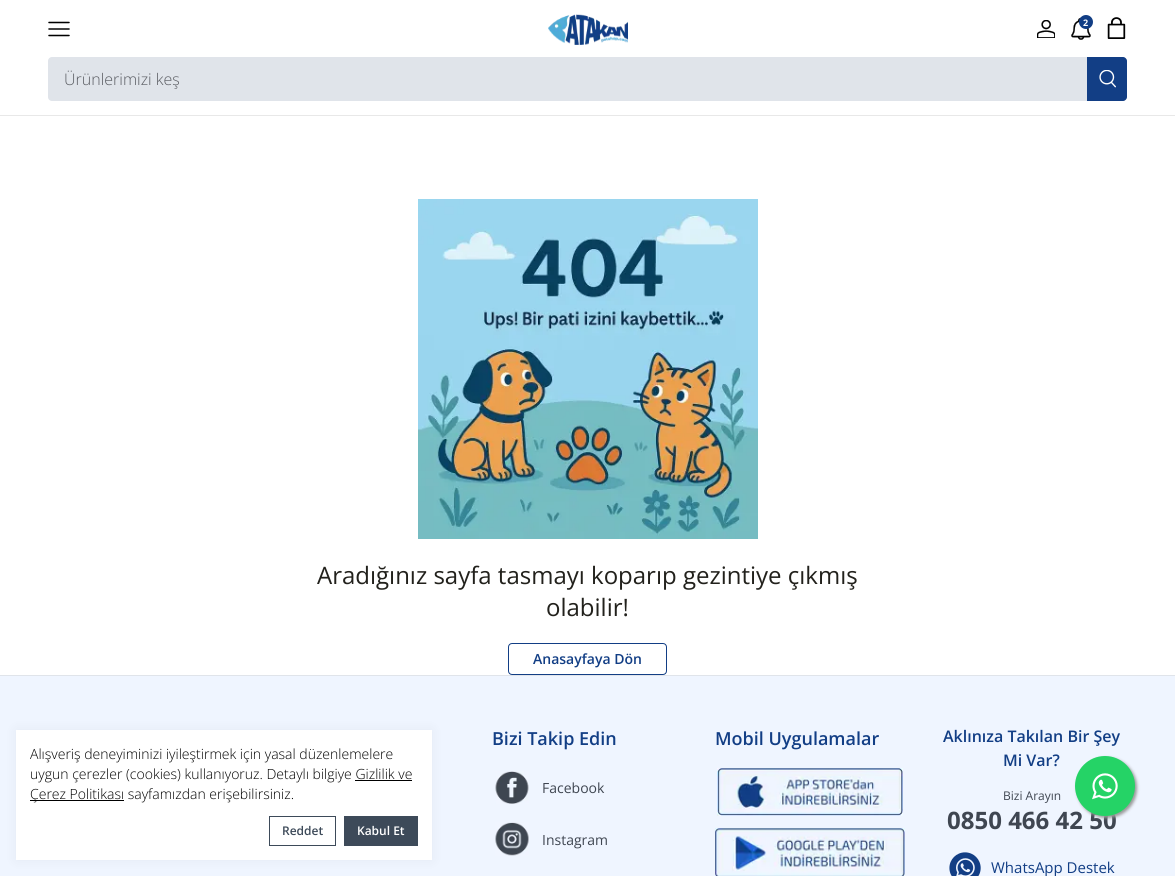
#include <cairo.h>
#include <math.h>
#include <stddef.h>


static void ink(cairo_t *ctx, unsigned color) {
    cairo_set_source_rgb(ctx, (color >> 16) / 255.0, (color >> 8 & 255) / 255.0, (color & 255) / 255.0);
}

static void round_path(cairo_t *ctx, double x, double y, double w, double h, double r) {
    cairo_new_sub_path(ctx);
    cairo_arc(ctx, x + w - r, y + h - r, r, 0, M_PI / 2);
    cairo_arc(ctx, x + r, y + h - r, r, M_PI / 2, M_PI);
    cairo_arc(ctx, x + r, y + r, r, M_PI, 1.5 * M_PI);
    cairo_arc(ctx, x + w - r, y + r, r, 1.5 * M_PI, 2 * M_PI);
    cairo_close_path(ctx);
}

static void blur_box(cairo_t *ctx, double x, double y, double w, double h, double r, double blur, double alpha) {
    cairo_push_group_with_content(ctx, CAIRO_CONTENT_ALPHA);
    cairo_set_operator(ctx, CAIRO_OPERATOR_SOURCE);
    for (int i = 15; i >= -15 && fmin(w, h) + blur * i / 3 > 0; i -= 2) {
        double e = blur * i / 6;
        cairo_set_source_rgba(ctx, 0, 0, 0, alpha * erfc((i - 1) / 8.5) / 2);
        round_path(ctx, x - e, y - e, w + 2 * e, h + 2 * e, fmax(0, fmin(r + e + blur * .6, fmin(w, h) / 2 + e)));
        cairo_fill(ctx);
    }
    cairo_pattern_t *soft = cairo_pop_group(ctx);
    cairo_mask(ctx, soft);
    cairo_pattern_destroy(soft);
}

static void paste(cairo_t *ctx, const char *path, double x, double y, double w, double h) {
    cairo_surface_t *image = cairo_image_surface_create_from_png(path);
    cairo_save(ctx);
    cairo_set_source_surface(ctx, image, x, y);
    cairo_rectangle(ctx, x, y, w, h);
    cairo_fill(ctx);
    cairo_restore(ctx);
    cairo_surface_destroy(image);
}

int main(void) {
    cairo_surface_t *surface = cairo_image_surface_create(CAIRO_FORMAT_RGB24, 1175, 876);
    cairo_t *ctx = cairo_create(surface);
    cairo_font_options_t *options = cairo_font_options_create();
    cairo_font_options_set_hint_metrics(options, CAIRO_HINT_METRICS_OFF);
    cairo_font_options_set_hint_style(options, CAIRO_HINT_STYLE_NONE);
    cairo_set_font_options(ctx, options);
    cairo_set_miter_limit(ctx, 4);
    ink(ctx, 0xFFFFFF);
    cairo_paint(ctx);
    ink(ctx, 0xE8E8E8);
    cairo_rectangle(ctx, 0, 115, 1175, 1);
    cairo_fill(ctx);
    cairo_new_path(ctx);
    cairo_move_to(ctx, 49, 29);
    cairo_line_to(ctx, 69, 29);
    cairo_move_to(ctx, 49, 22.5);
    cairo_line_to(ctx, 69, 22.5);
    cairo_move_to(ctx, 49, 35.5);
    cairo_line_to(ctx, 69, 35.5);
    ink(ctx, 0x000000);
    cairo_set_line_width(ctx, 1.5);
    cairo_set_line_cap(ctx, CAIRO_LINE_CAP_ROUND);
    cairo_set_line_join(ctx, CAIRO_LINE_JOIN_ROUND);
    cairo_stroke(ctx);
    paste(ctx, "media/1.png", 548, 14, 80, 31);
    paste(ctx, "media/2.png", 1037, 20, 18, 18);
    paste(ctx, "media/3.png", 1071, 17, 20, 23);
    ink(ctx, 0x123E85);
    cairo_arc(ctx, 1086, 22, 7, 0, 2 * M_PI);
    cairo_fill(ctx);
    cairo_select_font_face(ctx, "Open Sans", CAIRO_FONT_SLANT_NORMAL, CAIRO_FONT_WEIGHT_BOLD);
    cairo_set_font_size(ctx, 9);
    ink(ctx, 0xFFFFFF);
    cairo_move_to(ctx, 1083, 26);
    cairo_show_text(ctx, "2");
    paste(ctx, "media/4.png", 1107, 17, 19, 22);
    ink(ctx, 0xE0E4EA);
    round_path(ctx, 48, 57, 1079, 44, 4);
    cairo_fill(ctx);
    cairo_select_font_face(ctx, "Open Sans Light", CAIRO_FONT_SLANT_NORMAL, CAIRO_FONT_WEIGHT_NORMAL);
    cairo_set_font_size(ctx, 16);
    ink(ctx, 0x5B5D63);
    cairo_move_to(ctx, 64, 85);
    cairo_show_text(ctx, "Ürünlerimizi keş");
    ink(ctx, 0x123E85);
    cairo_new_path(ctx);
    cairo_move_to(ctx, 1087, 57);
    cairo_line_to(ctx, 1123, 57);
    cairo_curve_to(ctx, 1125, 57, 1127, 59, 1127, 61);
    cairo_line_to(ctx, 1127, 97);
    cairo_curve_to(ctx, 1127, 99, 1125, 101, 1123, 101);
    cairo_line_to(ctx, 1087, 101);
    cairo_close_path(ctx);
    cairo_fill(ctx);
    paste(ctx, "media/5.png", 1099, 70, 17, 18);
    ink(ctx, 0xEFF5FF);
    cairo_rectangle(ctx, 0, 676, 1175, 200);
    cairo_fill(ctx);
    ink(ctx, 0x000000);
    blur_box(ctx, 16, 730, 416, 130, 0, 6, 0.05);
    ink(ctx, 0xFFFFFF);
    cairo_rectangle(ctx, 16, 730, 416, 130);
    cairo_fill(ctx);
    cairo_set_font_size(ctx, 14);
    ink(ctx, 0x000000);
    cairo_move_to(ctx, 30, 759);
    cairo_show_text(ctx, "Alışveriş deneyiminizi iyileştirmek için yasal düzenlemelere");
    cairo_move_to(ctx, 30, 779);
    cairo_show_text(ctx, "uygun çerezler (cookies) kullanıyoruz. Detaylı bilgiye Gizlilik ve");
    cairo_rectangle(ctx, 30, 800, 94, 1);
    cairo_fill(ctx);
    cairo_move_to(ctx, 30, 799);
    cairo_show_text(ctx, "Çerez Politikası sayfamızdan erişebilirsiniz.");
    cairo_rectangle(ctx, 355, 780, 57, 1);
    cairo_fill(ctx);
    cairo_rectangle(ctx, 269.5, 816.5, 66, 29);
    ink(ctx, 0x3D4A59);
    cairo_set_line_width(ctx, 1);
    cairo_set_line_cap(ctx, CAIRO_LINE_CAP_BUTT);
    cairo_set_line_join(ctx, CAIRO_LINE_JOIN_MITER);
    cairo_stroke(ctx);
    cairo_select_font_face(ctx, "Open Sans SemiBold", CAIRO_FONT_SLANT_NORMAL, CAIRO_FONT_WEIGHT_NORMAL);
    cairo_set_font_size(ctx, 12);
    cairo_move_to(ctx, 282, 835);
    cairo_show_text(ctx, "Reddet");
    cairo_rectangle(ctx, 344, 816, 74, 30);
    cairo_fill(ctx);
    ink(ctx, 0xFFFFFF);
    cairo_move_to(ctx, 357, 835);
    cairo_show_text(ctx, "Kabul Et");
    paste(ctx, "media/6.png", 418, 199, 340, 340);
    cairo_select_font_face(ctx, "Open Sans", CAIRO_FONT_SLANT_NORMAL, CAIRO_FONT_WEIGHT_NORMAL);
    cairo_set_font_size(ctx, 24);
    ink(ctx, 0x22211C);
    cairo_move_to(ctx, 317, 584);
    cairo_show_text(ctx, "Aradığınız sayfa tasmayı koparıp gezintiye çıkmış");
    cairo_move_to(ctx, 546, 616);
    cairo_show_text(ctx, "olabilir!");
    round_path(ctx, 508.5, 643.5, 158, 31, 3.5);
    ink(ctx, 0x123E85);
    cairo_stroke(ctx);
    cairo_select_font_face(ctx, "Open Sans SemiBold", CAIRO_FONT_SLANT_NORMAL, CAIRO_FONT_WEIGHT_NORMAL);
    cairo_set_font_size(ctx, 14);
    cairo_move_to(ctx, 533, 664);
    cairo_show_text(ctx, "Anasayfaya Dön");
    ink(ctx, 0xE0E4EA);
    cairo_rectangle(ctx, 0, 675, 1175, 1);
    cairo_fill(ctx);
    cairo_set_font_size(ctx, 18);
    ink(ctx, 0x123E85);
    cairo_move_to(ctx, 492, 745);
    cairo_show_text(ctx, "Bizi Takip Edin");
    paste(ctx, "media/7.png", 495, 771, 34, 33);
    cairo_select_font_face(ctx, "Open Sans", CAIRO_FONT_SLANT_NORMAL, CAIRO_FONT_WEIGHT_NORMAL);
    cairo_set_font_size(ctx, 14);
    ink(ctx, 0x3F4651);
    cairo_move_to(ctx, 542, 793);
    cairo_show_text(ctx, "Facebook");
    paste(ctx, "media/8.png", 495, 822, 34, 34);
    cairo_move_to(ctx, 542, 845);
    cairo_show_text(ctx, "Instagram");
    cairo_select_font_face(ctx, "Open Sans SemiBold", CAIRO_FONT_SLANT_NORMAL, CAIRO_FONT_WEIGHT_NORMAL);
    cairo_set_font_size(ctx, 18);
    ink(ctx, 0x123E85);
    cairo_move_to(ctx, 715, 745);
    cairo_show_text(ctx, "Mobil Uygulamalar");
    paste(ctx, "media/9.png", 717, 768, 186, 48);
    paste(ctx, "media/10.png", 715, 828, 190, 48);
    cairo_set_font_size(ctx, 16);
    cairo_move_to(ctx, 943, 742);
    cairo_show_text(ctx, "Aklınıza Takılan Bir Şey");
    cairo_move_to(ctx, 1003, 766);
    cairo_show_text(ctx, "Mi Var?");
    cairo_select_font_face(ctx, "Open Sans", CAIRO_FONT_SLANT_NORMAL, CAIRO_FONT_WEIGHT_NORMAL);
    cairo_set_font_size(ctx, 12);
    ink(ctx, 0x3F4651);
    cairo_move_to(ctx, 1003, 800);
    cairo_show_text(ctx, "Bizi Arayın");
    cairo_select_font_face(ctx, "Open Sans", CAIRO_FONT_SLANT_NORMAL, CAIRO_FONT_WEIGHT_BOLD);
    cairo_set_font_size(ctx, 24);
    cairo_move_to(ctx, 947, 829);
    cairo_show_text(ctx, "0850 466 42 50");
    paste(ctx, "media/11.png", 949, 852, 32, 24);
    cairo_select_font_face(ctx, "Open Sans", CAIRO_FONT_SLANT_NORMAL, CAIRO_FONT_WEIGHT_NORMAL);
    cairo_set_font_size(ctx, 15);
    ink(ctx, 0x123E85);
    cairo_move_to(ctx, 991, 873);
    cairo_show_text(ctx, "WhatsApp Destek");
    ink(ctx, 0x999999);
    blur_box(ctx, 1077, 758, 60, 60, 30, 1.5, 1);
    ink(ctx, 0x25D366);
    cairo_arc(ctx, 1105, 786, 30, 0, 2 * M_PI);
    cairo_fill(ctx);
    paste(ctx, "media/12.png", 1092, 773, 26, 27);
    cairo_surface_write_to_png(surface, "image.png");
    cairo_font_options_destroy(options);
    cairo_destroy(ctx);
    cairo_surface_destroy(surface);
    return 0;
}
